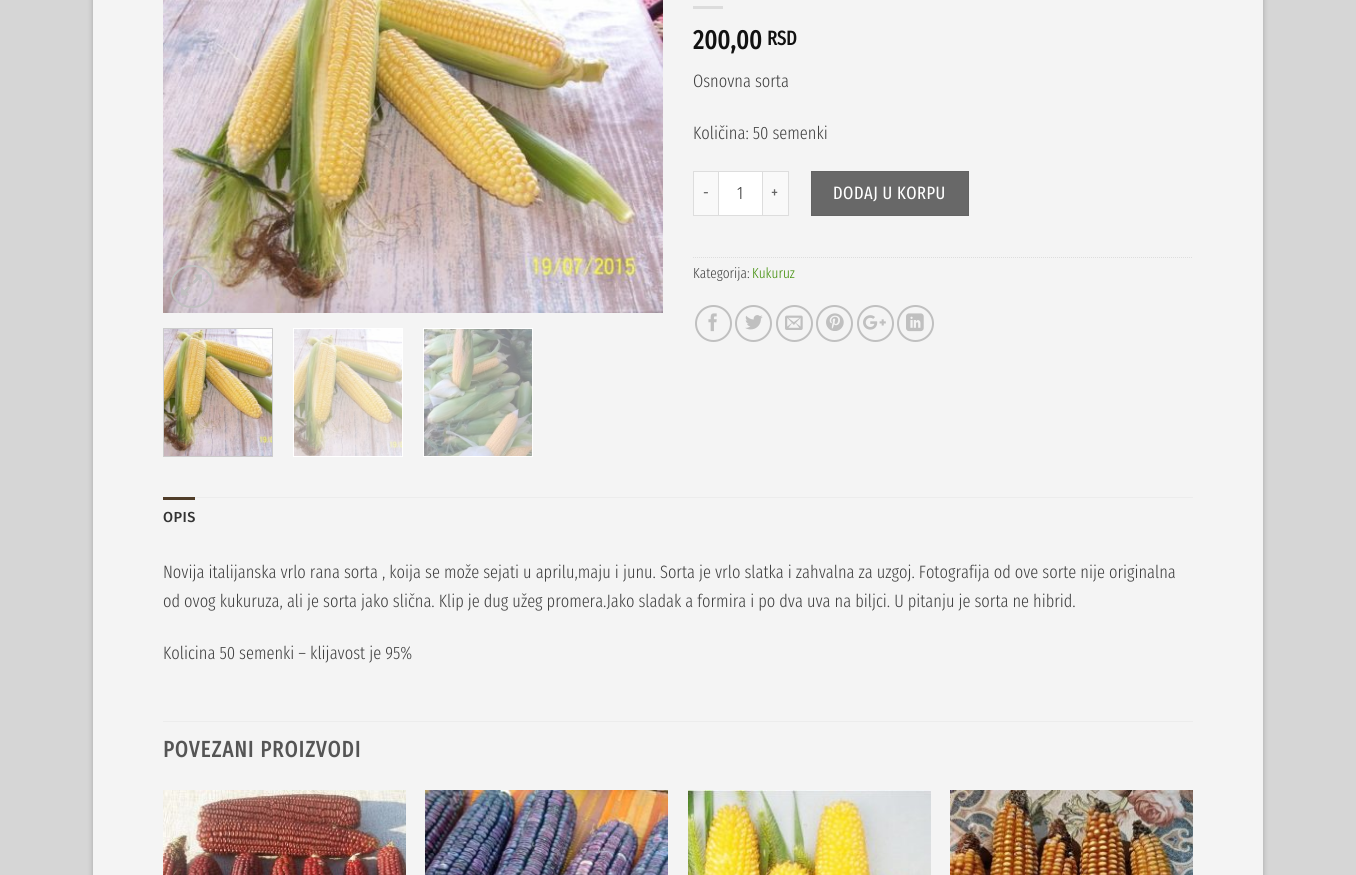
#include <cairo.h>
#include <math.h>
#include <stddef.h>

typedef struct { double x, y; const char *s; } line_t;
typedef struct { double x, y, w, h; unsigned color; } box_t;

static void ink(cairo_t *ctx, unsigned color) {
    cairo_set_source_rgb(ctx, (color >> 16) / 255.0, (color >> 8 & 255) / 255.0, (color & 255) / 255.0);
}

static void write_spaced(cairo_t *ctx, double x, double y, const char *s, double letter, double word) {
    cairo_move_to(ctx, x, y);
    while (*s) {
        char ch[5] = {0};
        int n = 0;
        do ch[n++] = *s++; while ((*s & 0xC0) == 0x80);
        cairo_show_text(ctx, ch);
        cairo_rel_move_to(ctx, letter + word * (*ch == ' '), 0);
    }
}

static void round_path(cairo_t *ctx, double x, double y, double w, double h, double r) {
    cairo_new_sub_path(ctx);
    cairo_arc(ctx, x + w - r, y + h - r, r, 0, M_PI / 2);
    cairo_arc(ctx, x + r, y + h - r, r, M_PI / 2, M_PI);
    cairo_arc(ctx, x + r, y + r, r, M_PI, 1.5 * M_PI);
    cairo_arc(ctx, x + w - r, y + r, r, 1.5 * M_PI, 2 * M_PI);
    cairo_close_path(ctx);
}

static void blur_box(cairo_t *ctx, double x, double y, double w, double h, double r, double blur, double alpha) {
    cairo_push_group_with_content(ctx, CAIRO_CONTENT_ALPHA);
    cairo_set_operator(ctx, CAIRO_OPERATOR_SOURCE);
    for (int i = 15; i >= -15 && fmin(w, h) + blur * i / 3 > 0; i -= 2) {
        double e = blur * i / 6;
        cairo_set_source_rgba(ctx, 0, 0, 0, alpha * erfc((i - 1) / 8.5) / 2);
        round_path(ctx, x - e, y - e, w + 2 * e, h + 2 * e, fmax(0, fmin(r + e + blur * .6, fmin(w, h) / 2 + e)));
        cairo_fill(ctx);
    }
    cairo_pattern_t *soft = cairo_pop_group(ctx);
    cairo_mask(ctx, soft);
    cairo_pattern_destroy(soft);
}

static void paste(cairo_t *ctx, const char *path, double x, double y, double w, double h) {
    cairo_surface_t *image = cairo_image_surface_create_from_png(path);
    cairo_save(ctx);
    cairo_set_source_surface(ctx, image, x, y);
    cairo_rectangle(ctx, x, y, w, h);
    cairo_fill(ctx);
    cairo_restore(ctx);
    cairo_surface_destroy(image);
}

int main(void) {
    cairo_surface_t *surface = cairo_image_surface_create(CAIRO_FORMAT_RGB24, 1356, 875);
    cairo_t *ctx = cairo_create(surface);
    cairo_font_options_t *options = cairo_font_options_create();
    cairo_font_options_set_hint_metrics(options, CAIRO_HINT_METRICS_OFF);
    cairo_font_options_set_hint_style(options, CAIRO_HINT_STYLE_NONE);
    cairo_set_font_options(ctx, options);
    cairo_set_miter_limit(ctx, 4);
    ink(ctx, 0xD6D6D6);
    cairo_paint(ctx);
    ink(ctx, 0x000000);
    blur_box(ctx, 93, -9, 1170, 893, 0, 3, 0.23);
    ink(ctx, 0xF4F4F4);
    cairo_rectangle(ctx, 93, 0, 1170, 875);
    cairo_fill(ctx);
    paste(ctx, "media/1.png", 163, 0, 500, 313);
    round_path(ctx, 171, 266, 42, 41, 20.5);
    ink(ctx, 0xC0C0C0);
    cairo_stroke(ctx);
    paste(ctx, "media/2.png", 181, 274, 21, 22);
    cairo_rectangle(ctx, 163.5, 328.5, 109, 128);
    ink(ctx, 0xCCCCCC);
    cairo_set_line_width(ctx, 1);
    cairo_stroke(ctx);
    paste(ctx, "media/3.png", 164, 329, 108, 127);
    ink(ctx, 0xFFFFFF);
    cairo_rectangle(ctx, 293, 328, 110, 129);
    cairo_fill(ctx);
    paste(ctx, "media/4.png", 294, 329, 108, 127);
    cairo_rectangle(ctx, 423, 328, 110, 129);
    cairo_fill(ctx);
    paste(ctx, "media/5.png", 424, 329, 108, 127);
    ink(ctx, 0xDCDCDC);
    cairo_rectangle(ctx, 693, 6, 30, 3);
    cairo_fill(ctx);
    cairo_select_font_face(ctx, "Fira Sans Extra Condensed", CAIRO_FONT_SLANT_NORMAL, CAIRO_FONT_WEIGHT_BOLD);
    cairo_set_font_size(ctx, 27);
    ink(ctx, 0x111111);
    cairo_move_to(ctx, 693, 49);
    cairo_show_text(ctx, "200,00");
    cairo_set_font_size(ctx, 20);
    cairo_move_to(ctx, 767, 45);
    cairo_show_text(ctx, "RSD");
    cairo_select_font_face(ctx, "Fira Sans Extra Condensed Light", CAIRO_FONT_SLANT_NORMAL, CAIRO_FONT_WEIGHT_NORMAL);
    cairo_set_font_size(ctx, 17.92);
    ink(ctx, 0x424242);
    cairo_move_to(ctx, 693, 87);
    cairo_show_text(ctx, "Osnovna sorta");
    cairo_move_to(ctx, 693, 139);
    cairo_show_text(ctx, "Količina: 50 semenki");
    {
        static const box_t items[] = {
            {694, 172, 24, 43, 0xF9F9F9},
            {693, 171, 25, 1, 0xDDDDDD},
            {693, 215, 25, 1, 0xDDDDDD},
            {693, 171, 1, 45, 0xDDDDDD},
        };
        for (size_t i = 0; i < sizeof items / sizeof *items; i++) {
            ink(ctx, items[i].color);
            cairo_rectangle(ctx, items[i].x, items[i].y, items[i].w, items[i].h);
            cairo_fill(ctx);
        }
    }
    cairo_select_font_face(ctx, "Fira Sans Extra Condensed", CAIRO_FONT_SLANT_NORMAL, CAIRO_FONT_WEIGHT_NORMAL);
    cairo_set_font_size(ctx, 17);
    ink(ctx, 0x666666);
    write_spaced(ctx, 703, 198, "-", 1, 0);
    ink(ctx, 0xFFFFFF);
    cairo_rectangle(ctx, 718.5, 171.5, 44, 44);
    cairo_fill_preserve(ctx);
    ink(ctx, 0xDDDDDD);
    cairo_stroke(ctx);
    cairo_select_font_face(ctx, "Fira Sans Extra Condensed Light", CAIRO_FONT_SLANT_NORMAL, CAIRO_FONT_WEIGHT_NORMAL);
    cairo_set_font_size(ctx, 17.92);
    ink(ctx, 0x333333);
    cairo_move_to(ctx, 737, 199);
    cairo_show_text(ctx, "1");
    {
        static const box_t items[] = {
            {763, 172, 25, 43, 0xF9F9F9},
            {763, 171, 26, 1, 0xDDDDDD},
            {788, 171, 1, 45, 0xDDDDDD},
            {763, 215, 26, 1, 0xDDDDDD},
        };
        for (size_t i = 0; i < sizeof items / sizeof *items; i++) {
            ink(ctx, items[i].color);
            cairo_rectangle(ctx, items[i].x, items[i].y, items[i].w, items[i].h);
            cairo_fill(ctx);
        }
    }
    cairo_select_font_face(ctx, "Fira Sans Extra Condensed", CAIRO_FONT_SLANT_NORMAL, CAIRO_FONT_WEIGHT_NORMAL);
    cairo_set_font_size(ctx, 17);
    ink(ctx, 0x666666);
    write_spaced(ctx, 771, 198, "+", 1, 0);
    ink(ctx, 0x686868);
    cairo_rectangle(ctx, 811.5, 171.5, 157, 44);
    cairo_fill_preserve(ctx);
    ink(ctx, 0x636363);
    cairo_stroke(ctx);
    cairo_set_font_size(ctx, 17.92);
    ink(ctx, 0xFFFFFF);
    write_spaced(ctx, 833, 199, "DODAJ U KORPU", 0.5, 0);
    cairo_new_path(ctx);
    cairo_move_to(ctx, 693, 257.5);
    cairo_line_to(ctx, 1193, 257.5);
    ink(ctx, 0xDDDDDD);
    cairo_set_dash(ctx, (double[]){1, 1}, 2, 0);
    cairo_stroke(ctx);
    cairo_select_font_face(ctx, "Fira Sans Extra Condensed Light", CAIRO_FONT_SLANT_NORMAL, CAIRO_FONT_WEIGHT_NORMAL);
    cairo_set_font_size(ctx, 14.5);
    ink(ctx, 0x424242);
    cairo_move_to(ctx, 693, 278);
    cairo_show_text(ctx, "Kategorija:");
    ink(ctx, 0x3E8D06);
    cairo_move_to(ctx, 752, 278);
    cairo_show_text(ctx, "Kukuruz");
    cairo_new_path(ctx);
    cairo_arc(ctx, 713.5, 323.5, 17.5, 0, 2 * M_PI);
    ink(ctx, 0xC0C0C0);
    cairo_set_line_width(ctx, 2);
    cairo_set_dash(ctx, NULL, 0, 0);
    cairo_stroke(ctx);
    paste(ctx, "media/6.png", 708, 313, 9, 19);
    cairo_arc(ctx, 753.5, 323.5, 17.5, 0, 2 * M_PI);
    cairo_stroke(ctx);
    paste(ctx, "media/7.png", 745, 315, 18, 15);
    cairo_arc(ctx, 794.5, 323.5, 17.5, 0, 2 * M_PI);
    cairo_stroke(ctx);
    paste(ctx, "media/8.png", 785, 315, 18, 15);
    cairo_arc(ctx, 834.5, 323.5, 17.5, 0, 2 * M_PI);
    cairo_stroke(ctx);
    paste(ctx, "media/9.png", 826, 313, 18, 18);
    cairo_arc(ctx, 875.5, 323.5, 17.5, 0, 2 * M_PI);
    cairo_stroke(ctx);
    paste(ctx, "media/10.png", 863, 315, 23, 15);
    cairo_arc(ctx, 915.5, 323.5, 17.5, 0, 2 * M_PI);
    cairo_stroke(ctx);
    paste(ctx, "media/11.png", 906, 313, 18, 19);
    ink(ctx, 0xECECEC);
    cairo_rectangle(ctx, 195, 497, 998, 1);
    cairo_fill(ctx);
    ink(ctx, 0x503D29);
    cairo_rectangle(ctx, 163, 497, 32, 3);
    cairo_fill(ctx);
    cairo_select_font_face(ctx, "Fira Sans Medium", CAIRO_FONT_SLANT_NORMAL, CAIRO_FONT_WEIGHT_NORMAL);
    ink(ctx, 0x333333);
    write_spaced(ctx, 163, 522, "OPIS", 0.5, 0);
    cairo_select_font_face(ctx, "Fira Sans Extra Condensed Light", CAIRO_FONT_SLANT_NORMAL, CAIRO_FONT_WEIGHT_NORMAL);
    cairo_set_font_size(ctx, 17.92);
    ink(ctx, 0x424242);
    {
        static const line_t items[] = {
            {163, 578, "Novija italijanska vrlo rana sorta , koija se može sejati u aprilu,maju i junu. Sorta je vrlo slatka i zahvalna za uzgoj. Fotografija od ove sorte nije originalna"},
            {163, 607, "od ovog kukuruza, ali je sorta jako slična. Klip je dug užeg promera.Jako sladak a formira i po dva uva na biljci. U pitanju je sorta ne hibrid."},
            {163, 659, "Kolicina 50 semenki – klijavost je 95%"},
        };
        for (size_t i = 0; i < sizeof items / sizeof *items; i++) {
            cairo_move_to(ctx, items[i].x, items[i].y);
            cairo_show_text(ctx, items[i].s);
        }
    }
    ink(ctx, 0xECECEC);
    cairo_rectangle(ctx, 163, 721, 1030, 1);
    cairo_fill(ctx);
    cairo_select_font_face(ctx, "Fira Sans Extra Condensed", CAIRO_FONT_SLANT_NORMAL, CAIRO_FONT_WEIGHT_BOLD);
    cairo_set_font_size(ctx, 22.5);
    ink(ctx, 0x555555);
    write_spaced(ctx, 163, 757, "POVEZANI PROIZVODI", 1.1, 0);
    paste(ctx, "media/12.png", 163, 790, 243, 85);
    paste(ctx, "media/13.png", 425, 790, 243, 85);
    paste(ctx, "media/14.png", 688, 790, 243, 85);
    paste(ctx, "media/15.png", 950, 790, 243, 85);
    cairo_surface_write_to_png(surface, "image.png");
    cairo_font_options_destroy(options);
    cairo_destroy(ctx);
    cairo_surface_destroy(surface);
    return 0;
}
